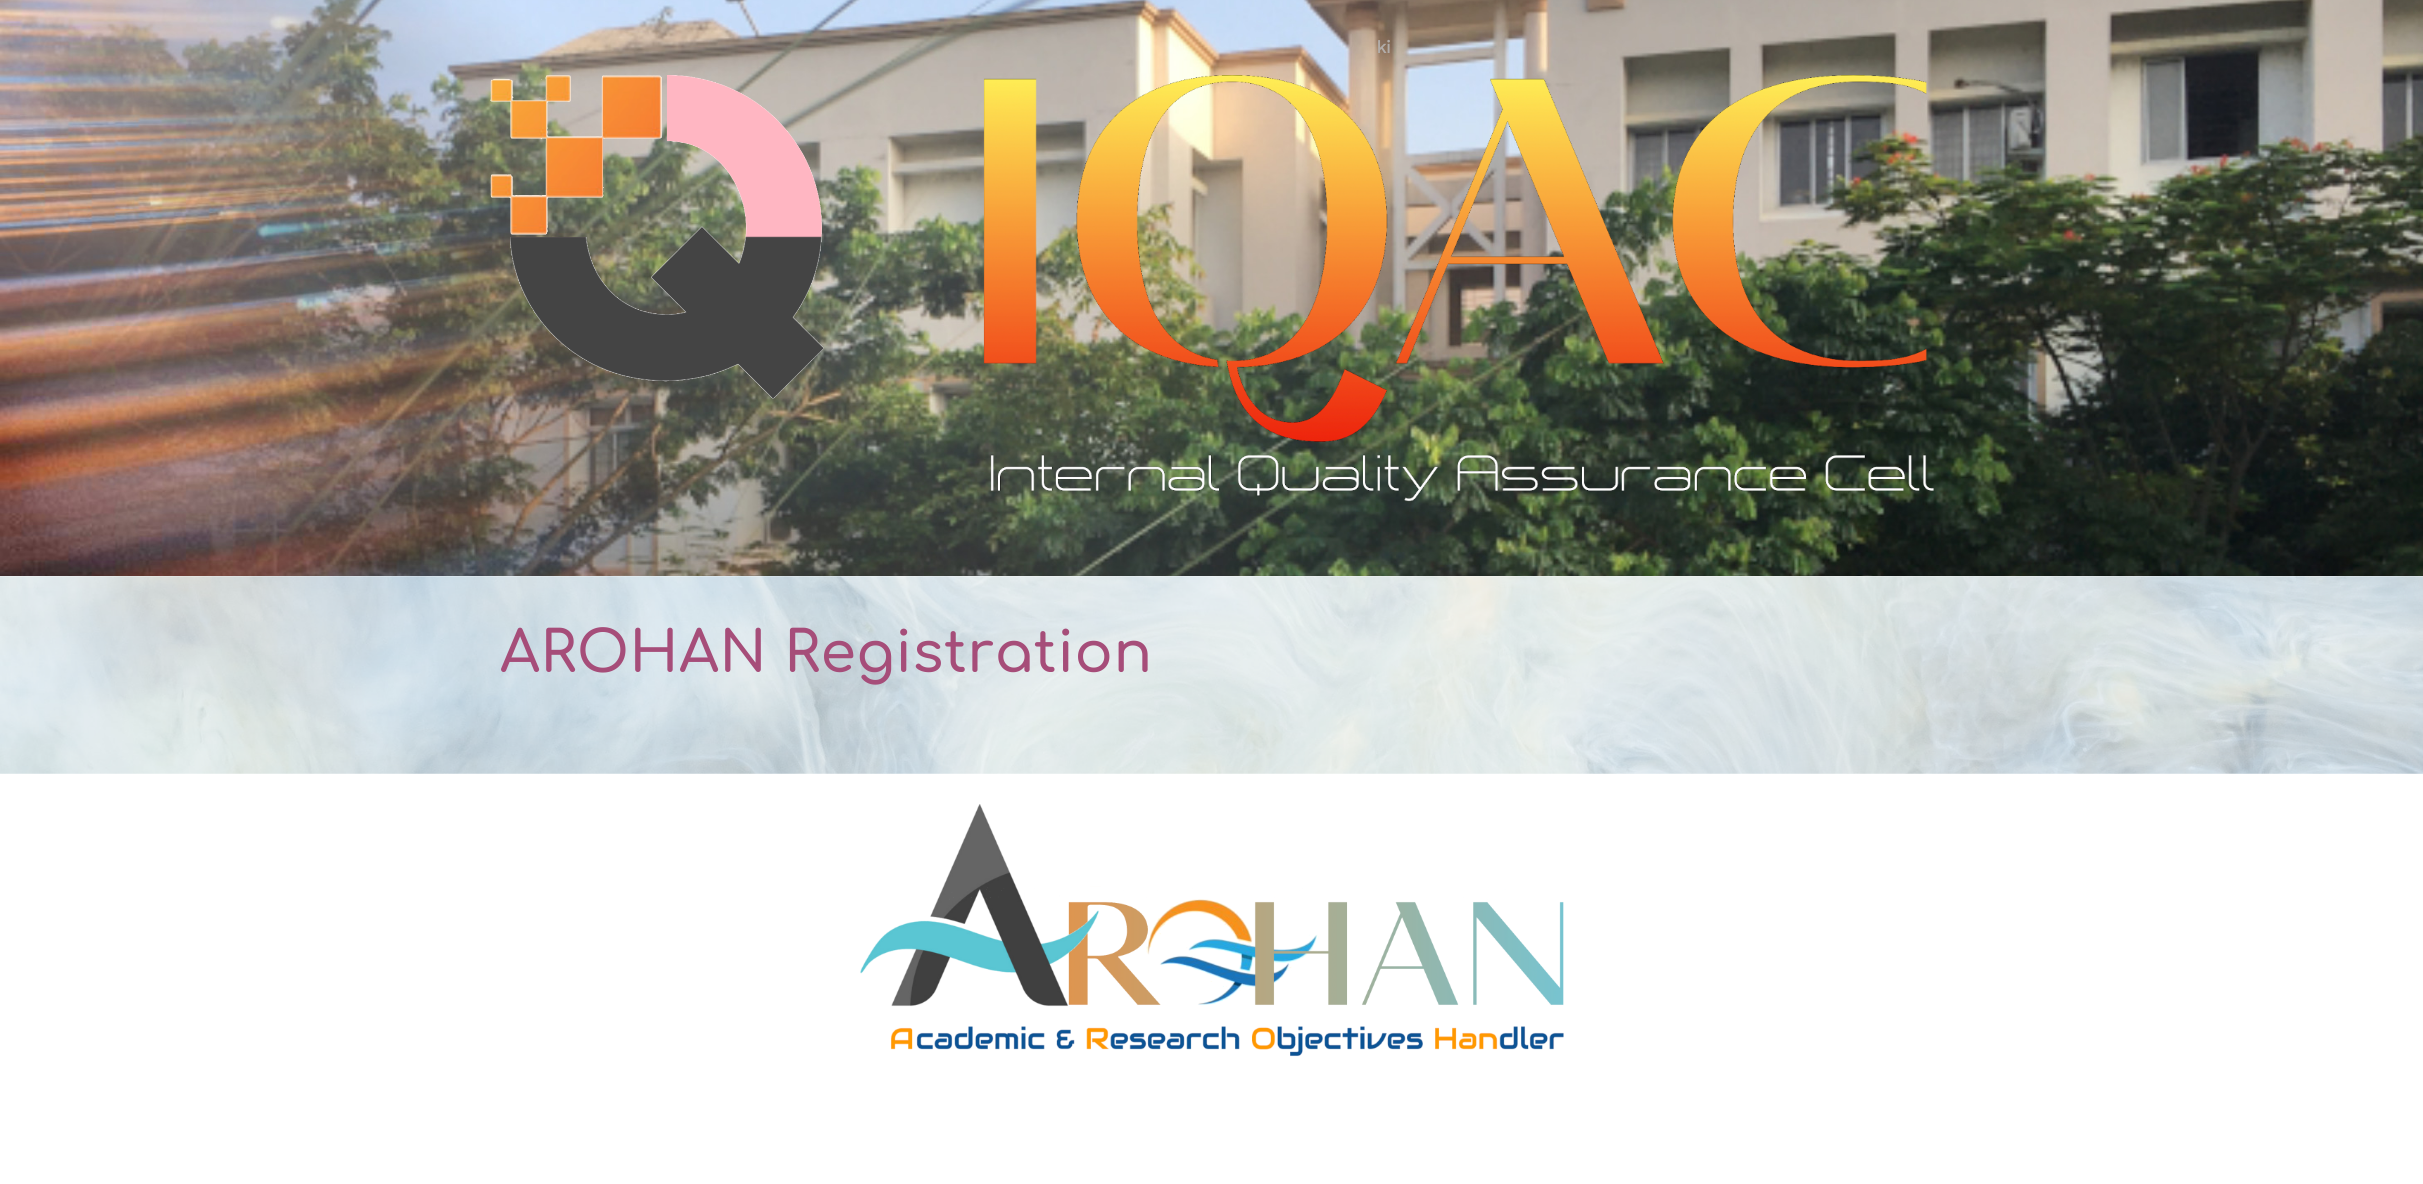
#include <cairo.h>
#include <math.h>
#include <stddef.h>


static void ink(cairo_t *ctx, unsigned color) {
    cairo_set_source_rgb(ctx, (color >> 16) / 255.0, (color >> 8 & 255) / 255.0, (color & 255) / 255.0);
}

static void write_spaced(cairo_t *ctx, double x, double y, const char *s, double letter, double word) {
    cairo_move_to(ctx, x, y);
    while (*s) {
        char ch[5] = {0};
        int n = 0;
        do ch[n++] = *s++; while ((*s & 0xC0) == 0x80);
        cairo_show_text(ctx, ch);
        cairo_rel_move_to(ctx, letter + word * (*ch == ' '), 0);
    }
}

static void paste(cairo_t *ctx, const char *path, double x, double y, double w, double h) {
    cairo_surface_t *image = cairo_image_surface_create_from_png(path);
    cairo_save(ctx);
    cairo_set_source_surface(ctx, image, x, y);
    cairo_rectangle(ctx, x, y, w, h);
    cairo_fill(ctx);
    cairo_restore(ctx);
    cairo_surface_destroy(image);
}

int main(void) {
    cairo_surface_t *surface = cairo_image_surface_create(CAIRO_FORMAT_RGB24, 2423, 1184);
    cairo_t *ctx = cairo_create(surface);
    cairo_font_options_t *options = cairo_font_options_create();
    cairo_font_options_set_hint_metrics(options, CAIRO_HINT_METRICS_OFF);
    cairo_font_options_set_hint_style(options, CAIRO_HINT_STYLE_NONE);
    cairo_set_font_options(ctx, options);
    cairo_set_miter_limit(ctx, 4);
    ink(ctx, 0xFFFFFF);
    cairo_paint(ctx);
    paste(ctx, "media/1.png", 0, 0, 2423, 577);
    cairo_select_font_face(ctx, "Google Sans Medium", CAIRO_FONT_SLANT_NORMAL, CAIRO_FONT_WEIGHT_NORMAL);
    cairo_set_font_size(ctx, 18);
    ink(ctx, 0xB1ACA9);
    cairo_move_to(ctx, 1377, 53);
    cairo_show_text(ctx, "ki");
    paste(ctx, "media/2.png", 490, 75, 334, 324);
    paste(ctx, "media/3.png", 983, 75, 951, 427);
    paste(ctx, "media/4.png", 0, 576, 2423, 198);
    cairo_set_source_rgba(ctx, 1, 1, 1, 0.5);
    cairo_rectangle(ctx, 0, 576, 2423, 198);
    cairo_fill(ctx);
    cairo_select_font_face(ctx, "Comfortaa SemiBold", CAIRO_FONT_SLANT_NORMAL, CAIRO_FONT_WEIGHT_NORMAL);
    cairo_set_font_size(ctx, 56.75);
    ink(ctx, 0xA64D79);
    write_spaced(ctx, 500, 672, "AROHAN Registration", 0.6, 0);
    paste(ctx, "media/5.png", 860, 804, 704, 253);
    cairo_surface_write_to_png(surface, "image.png");
    cairo_font_options_destroy(options);
    cairo_destroy(ctx);
    cairo_surface_destroy(surface);
    return 0;
}
